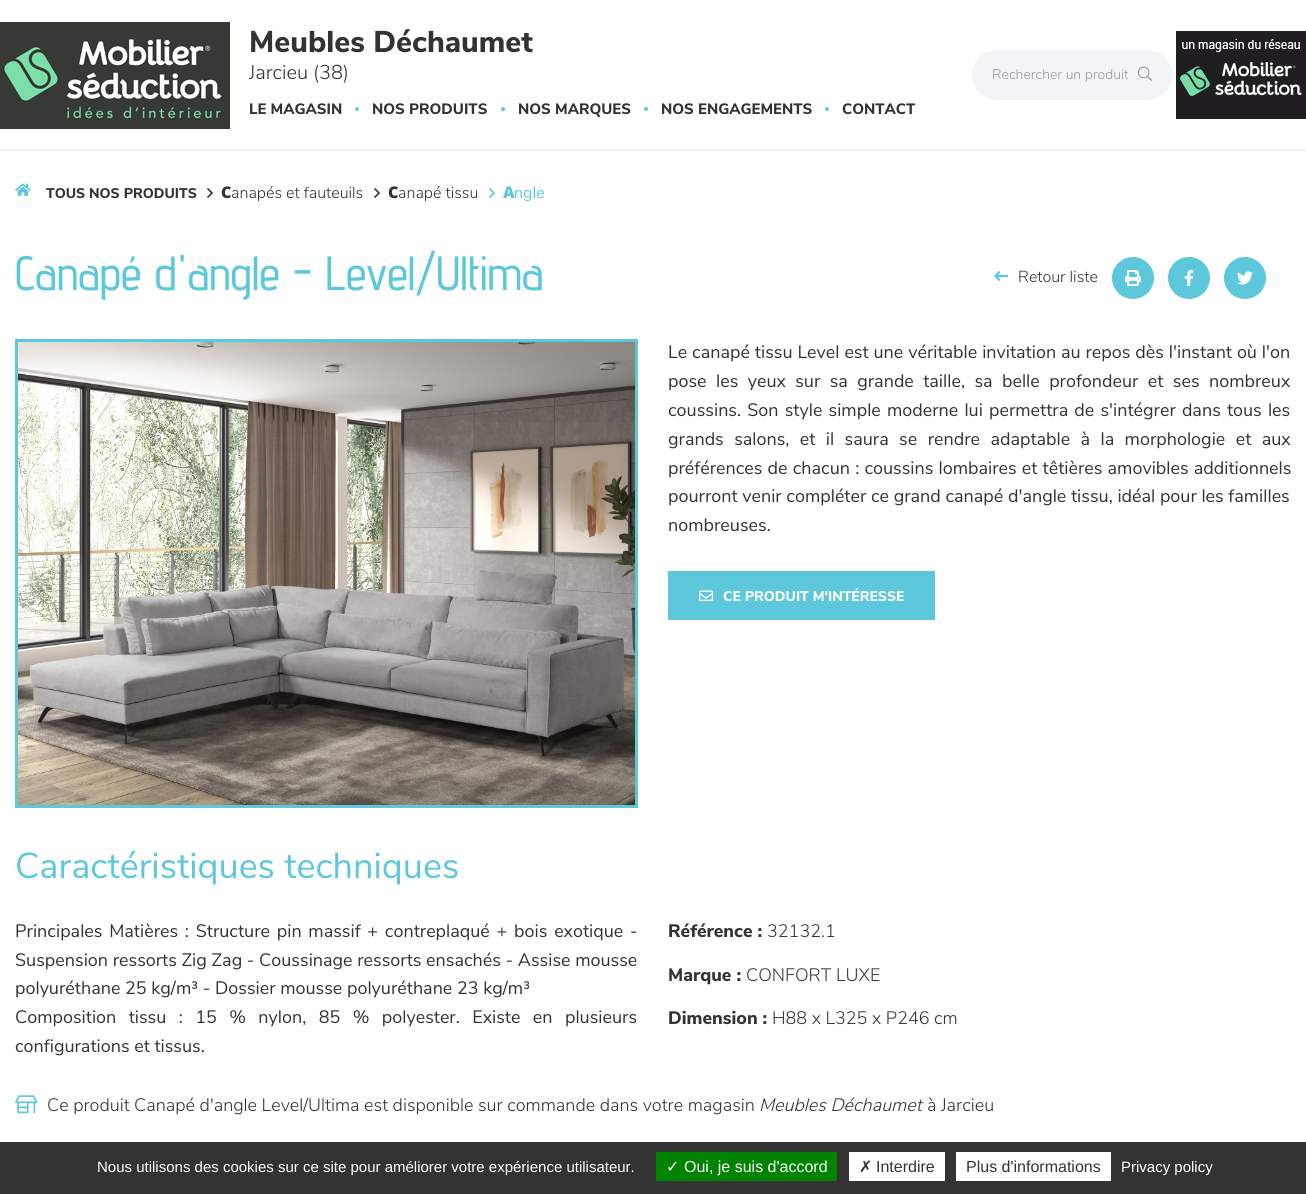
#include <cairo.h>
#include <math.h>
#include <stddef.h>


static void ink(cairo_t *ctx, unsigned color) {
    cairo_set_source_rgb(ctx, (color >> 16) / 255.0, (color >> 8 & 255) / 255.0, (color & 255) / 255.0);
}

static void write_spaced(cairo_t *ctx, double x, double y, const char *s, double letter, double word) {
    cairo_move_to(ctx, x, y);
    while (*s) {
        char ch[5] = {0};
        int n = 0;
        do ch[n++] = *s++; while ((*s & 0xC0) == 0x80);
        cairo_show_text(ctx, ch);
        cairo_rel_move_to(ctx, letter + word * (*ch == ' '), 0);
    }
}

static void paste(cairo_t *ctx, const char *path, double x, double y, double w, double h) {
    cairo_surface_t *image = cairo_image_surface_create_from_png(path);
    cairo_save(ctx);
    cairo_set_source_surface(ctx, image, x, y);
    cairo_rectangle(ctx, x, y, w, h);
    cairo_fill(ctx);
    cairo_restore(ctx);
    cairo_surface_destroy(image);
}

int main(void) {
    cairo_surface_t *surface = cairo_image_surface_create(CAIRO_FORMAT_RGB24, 1306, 1194);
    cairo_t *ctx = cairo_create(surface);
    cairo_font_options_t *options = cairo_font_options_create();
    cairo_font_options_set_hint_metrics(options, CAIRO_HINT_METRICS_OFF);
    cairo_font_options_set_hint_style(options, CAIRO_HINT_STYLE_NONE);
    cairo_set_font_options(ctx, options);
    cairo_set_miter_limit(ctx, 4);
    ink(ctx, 0xFFFFFF);
    cairo_paint(ctx);
    ink(ctx, 0xE6E6E6);
    cairo_rectangle(ctx, 0, 150, 1306, 1);
    cairo_fill(ctx);
    paste(ctx, "media/1.png", 0, 22, 230, 107);
    cairo_select_font_face(ctx, "Nunito Sans ExtraBold", CAIRO_FONT_SLANT_NORMAL, CAIRO_FONT_WEIGHT_NORMAL);
    cairo_set_font_size(ctx, 30);
    ink(ctx, 0x333333);
    cairo_move_to(ctx, 249, 52);
    cairo_show_text(ctx, "Meubles Déchaumet");
    cairo_select_font_face(ctx, "Nunito Sans Light", CAIRO_FONT_SLANT_NORMAL, CAIRO_FONT_WEIGHT_NORMAL);
    cairo_set_font_size(ctx, 20);
    cairo_move_to(ctx, 249, 79);
    cairo_show_text(ctx, "Jarcieu (38)");
    cairo_select_font_face(ctx, "Nunito Sans ExtraBold", CAIRO_FONT_SLANT_NORMAL, CAIRO_FONT_WEIGHT_NORMAL);
    cairo_set_font_size(ctx, 15);
    cairo_move_to(ctx, 249, 114);
    cairo_show_text(ctx, "LE MAGASIN");
    ink(ctx, 0x5DC8DC);
    cairo_new_path(ctx);
    cairo_arc(ctx, 357, 109, 2, 0, 2 * M_PI);
    cairo_fill(ctx);
    ink(ctx, 0x333333);
    cairo_move_to(ctx, 372, 114);
    cairo_show_text(ctx, "NOS PRODUITS");
    ink(ctx, 0x5DC8DC);
    cairo_new_path(ctx);
    cairo_arc(ctx, 503, 109, 2, 0, 2 * M_PI);
    cairo_fill(ctx);
    ink(ctx, 0x333333);
    cairo_move_to(ctx, 518, 114);
    cairo_show_text(ctx, "NOS MARQUES");
    ink(ctx, 0x5DC8DC);
    cairo_new_path(ctx);
    cairo_arc(ctx, 646, 109, 2, 0, 2 * M_PI);
    cairo_fill(ctx);
    ink(ctx, 0x333333);
    cairo_move_to(ctx, 661, 114);
    cairo_show_text(ctx, "NOS ENGAGEMENTS");
    ink(ctx, 0x5DC8DC);
    cairo_new_path(ctx);
    cairo_arc(ctx, 827, 109, 2, 0, 2 * M_PI);
    cairo_fill(ctx);
    ink(ctx, 0x333333);
    cairo_move_to(ctx, 842, 114);
    cairo_show_text(ctx, "CONTACT");
    ink(ctx, 0xF2F4F6);
    cairo_new_path(ctx);
    cairo_move_to(ctx, 997, 50);
    cairo_line_to(ctx, 1129, 50);
    cairo_line_to(ctx, 1129, 100);
    cairo_line_to(ctx, 997, 100);
    cairo_curve_to(ctx, 983, 100, 972, 89, 972, 75);
    cairo_curve_to(ctx, 972, 61, 983, 50, 997, 50);
    cairo_close_path(ctx);
    cairo_fill(ctx);
    cairo_select_font_face(ctx, "Nunito Sans Light", CAIRO_FONT_SLANT_NORMAL, CAIRO_FONT_WEIGHT_NORMAL);
    cairo_set_font_size(ctx, 14);
    ink(ctx, 0x999999);
    cairo_move_to(ctx, 992, 79);
    cairo_show_text(ctx, "Rechercher un produit");
    ink(ctx, 0xF2F4F6);
    cairo_new_path(ctx);
    cairo_move_to(ctx, 1128, 50);
    cairo_line_to(ctx, 1147, 50);
    cairo_curve_to(ctx, 1161, 50, 1172, 61, 1172, 75);
    cairo_curve_to(ctx, 1172, 89, 1161, 100, 1147, 100);
    cairo_line_to(ctx, 1128, 100);
    cairo_close_path(ctx);
    cairo_fill(ctx);
    paste(ctx, "media/2.png", 1138, 66, 14, 15);
    paste(ctx, "media/3.png", 1176, 31, 130, 88);
    paste(ctx, "media/4.png", 15, 183, 16, 13);
    cairo_select_font_face(ctx, "Nunito Sans ExtraBold", CAIRO_FONT_SLANT_NORMAL, CAIRO_FONT_WEIGHT_NORMAL);
    ink(ctx, 0x333333);
    cairo_move_to(ctx, 46, 198);
    cairo_show_text(ctx, "TOUS NOS PRODUITS");
    paste(ctx, "media/5.png", 207, 188, 6, 10);
    cairo_select_font_face(ctx, "Noto Sans Black", CAIRO_FONT_SLANT_NORMAL, CAIRO_FONT_WEIGHT_NORMAL);
    cairo_set_font_size(ctx, 16);
    cairo_move_to(ctx, 221, 198);
    cairo_show_text(ctx, "C");
    cairo_select_font_face(ctx, "Nunito Sans Light", CAIRO_FONT_SLANT_NORMAL, CAIRO_FONT_WEIGHT_NORMAL);
    cairo_move_to(ctx, 231, 198);
    cairo_show_text(ctx, "anapés et fauteuils");
    paste(ctx, "media/5.png", 374, 188, 6, 10);
    cairo_select_font_face(ctx, "Noto Sans Black", CAIRO_FONT_SLANT_NORMAL, CAIRO_FONT_WEIGHT_NORMAL);
    cairo_move_to(ctx, 388, 198);
    cairo_show_text(ctx, "C");
    cairo_select_font_face(ctx, "Nunito Sans Light", CAIRO_FONT_SLANT_NORMAL, CAIRO_FONT_WEIGHT_NORMAL);
    cairo_move_to(ctx, 398, 198);
    cairo_show_text(ctx, "anapé tissu");
    paste(ctx, "media/6.png", 489, 188, 6, 10);
    cairo_select_font_face(ctx, "Noto Sans Black", CAIRO_FONT_SLANT_NORMAL, CAIRO_FONT_WEIGHT_NORMAL);
    ink(ctx, 0x5DC8DC);
    cairo_move_to(ctx, 503, 198);
    cairo_show_text(ctx, "A");
    cairo_select_font_face(ctx, "Nunito Sans", CAIRO_FONT_SLANT_NORMAL, CAIRO_FONT_WEIGHT_NORMAL);
    cairo_move_to(ctx, 514, 198);
    cairo_show_text(ctx, "ngle");
    cairo_select_font_face(ctx, "Advent Pro Medium", CAIRO_FONT_SLANT_NORMAL, CAIRO_FONT_WEIGHT_NORMAL);
    cairo_set_font_size(ctx, 48);
    cairo_move_to(ctx, 15, 290);
    cairo_show_text(ctx, "Canapé d'angle - Level/Ultima");
    paste(ctx, "media/7.png", 994, 271, 14, 10);
    cairo_select_font_face(ctx, "Nunito Sans Light", CAIRO_FONT_SLANT_NORMAL, CAIRO_FONT_WEIGHT_NORMAL);
    cairo_set_font_size(ctx, 16);
    ink(ctx, 0x333333);
    cairo_move_to(ctx, 1018, 282);
    cairo_show_text(ctx, "Retour liste");
    ink(ctx, 0x5DC8DC);
    cairo_new_path(ctx);
    cairo_arc(ctx, 1133, 278, 21, 0, 2 * M_PI);
    cairo_fill(ctx);
    paste(ctx, "media/8.png", 1125, 270, 16, 16);
    cairo_arc(ctx, 1189, 278, 21, 0, 2 * M_PI);
    cairo_fill(ctx);
    paste(ctx, "media/9.png", 1184, 270, 10, 16);
    cairo_arc(ctx, 1245, 278, 21, 0, 2 * M_PI);
    cairo_fill(ctx);
    paste(ctx, "media/10.png", 1237, 271, 16, 14);
    cairo_rectangle(ctx, 16.5, 340.5, 620, 466);
    cairo_set_line_width(ctx, 3);
    cairo_stroke(ctx);
    paste(ctx, "media/11.png", 18, 342, 617, 463);
    cairo_select_font_face(ctx, "Nunito Sans", CAIRO_FONT_SLANT_NORMAL, CAIRO_FONT_WEIGHT_NORMAL);
    cairo_set_font_size(ctx, 18);
    ink(ctx, 0x333333);
    write_spaced(ctx, 668, 358, "Le canapé tissu Level est une véritable invitation au repos dès l'instant où l'on", 0, 0.25);
    write_spaced(ctx, 668, 387, "pose les yeux sur sa grande taille, sa belle profondeur et ses nombreux", 0, 4.75);
    write_spaced(ctx, 668, 416, "coussins. Son style simple moderne lui permettra de s'intégrer dans tous les", 0, 1.5);
    write_spaced(ctx, 668, 445, "grands salons, et il saura se rendre adaptable à la morphologie et aux", 0, 5.75);
    write_spaced(ctx, 668, 474, "préférences de chacun : coussins lombaires et têtières amovibles additionnels", 0, 0.5);
    cairo_move_to(ctx, 668, 502);
    cairo_show_text(ctx, "pourront venir compléter ce grand canapé d'angle tissu, idéal pour les familles");
    cairo_move_to(ctx, 668, 531);
    cairo_show_text(ctx, "nombreuses.");
    ink(ctx, 0x5DC8DC);
    cairo_rectangle(ctx, 668, 571, 267, 49);
    cairo_fill(ctx);
    paste(ctx, "media/12.png", 699, 590, 14, 11);
    cairo_select_font_face(ctx, "Nunito Sans ExtraBold", CAIRO_FONT_SLANT_NORMAL, CAIRO_FONT_WEIGHT_NORMAL);
    cairo_set_font_size(ctx, 14);
    ink(ctx, 0xFFFFFF);
    cairo_move_to(ctx, 723, 601);
    cairo_show_text(ctx, "CE PRODUIT M'INTÉRESSE");
    cairo_select_font_face(ctx, "Nunito Sans", CAIRO_FONT_SLANT_NORMAL, CAIRO_FONT_WEIGHT_NORMAL);
    cairo_set_font_size(ctx, 36);
    ink(ctx, 0x5DC8DC);
    cairo_move_to(ctx, 15, 878);
    cairo_show_text(ctx, "Caractéristiques techniques");
    cairo_set_font_size(ctx, 18);
    ink(ctx, 0x333333);
    write_spaced(ctx, 15, 937, "Principales Matières : Structure pin massif + contreplaqué + bois exotique -", 0, 2.1);
    cairo_move_to(ctx, 15, 966);
    cairo_show_text(ctx, "Suspension ressorts Zig Zag - Coussinage ressorts ensachés - Assise mousse");
    cairo_move_to(ctx, 15, 994);
    cairo_show_text(ctx, "polyuréthane 25 kg/m³ - Dossier mousse polyuréthane 23 kg/m³");
    write_spaced(ctx, 15, 1023, "Composition tissu : 15 % nylon, 85 % polyester. Existe en plusieurs", 0, 7.75);
    cairo_move_to(ctx, 15, 1052);
    cairo_show_text(ctx, "configurations et tissus.");
    cairo_select_font_face(ctx, "Nunito Sans ExtraBold", CAIRO_FONT_SLANT_NORMAL, CAIRO_FONT_WEIGHT_NORMAL);
    cairo_move_to(ctx, 668, 937);
    cairo_show_text(ctx, "Référence :");
    cairo_select_font_face(ctx, "Nunito Sans Light", CAIRO_FONT_SLANT_NORMAL, CAIRO_FONT_WEIGHT_NORMAL);
    cairo_move_to(ctx, 767, 937);
    cairo_show_text(ctx, "32132.1");
    cairo_select_font_face(ctx, "Nunito Sans ExtraBold", CAIRO_FONT_SLANT_NORMAL, CAIRO_FONT_WEIGHT_NORMAL);
    cairo_move_to(ctx, 668, 981);
    cairo_show_text(ctx, "Marque :");
    cairo_select_font_face(ctx, "Nunito Sans Light", CAIRO_FONT_SLANT_NORMAL, CAIRO_FONT_WEIGHT_NORMAL);
    cairo_move_to(ctx, 746, 981);
    cairo_show_text(ctx, "CONFORT LUXE");
    cairo_select_font_face(ctx, "Nunito Sans ExtraBold", CAIRO_FONT_SLANT_NORMAL, CAIRO_FONT_WEIGHT_NORMAL);
    cairo_move_to(ctx, 668, 1024);
    cairo_show_text(ctx, "Dimension :");
    cairo_select_font_face(ctx, "Nunito Sans Light", CAIRO_FONT_SLANT_NORMAL, CAIRO_FONT_WEIGHT_NORMAL);
    cairo_move_to(ctx, 772, 1024);
    cairo_show_text(ctx, "H88 x L325 x P246 cm");
    paste(ctx, "media/13.png", 15, 1095, 23, 19);
    cairo_move_to(ctx, 47, 1111);
    cairo_show_text(ctx, "Ce produit Canapé d'angle Level/Ultima est disponible sur commande dans votre magasin");
    cairo_select_font_face(ctx, "Nunito Sans Light", CAIRO_FONT_SLANT_ITALIC, CAIRO_FONT_WEIGHT_NORMAL);
    cairo_move_to(ctx, 759, 1111);
    cairo_show_text(ctx, "Meubles Déchaumet");
    cairo_select_font_face(ctx, "Nunito Sans Light", CAIRO_FONT_SLANT_NORMAL, CAIRO_FONT_WEIGHT_NORMAL);
    cairo_move_to(ctx, 927, 1111);
    cairo_show_text(ctx, "à Jarcieu");
    cairo_rectangle(ctx, 0, 1142, 1306, 52);
    cairo_fill(ctx);
    cairo_select_font_face(ctx, "Liberation Sans", CAIRO_FONT_SLANT_NORMAL, CAIRO_FONT_WEIGHT_NORMAL);
    cairo_set_font_size(ctx, 15);
    ink(ctx, 0xFFFFFF);
    cairo_move_to(ctx, 97, 1172);
    cairo_show_text(ctx, "Nous utilisons des cookies sur ce site pour améliorer votre expérience utilisateur.");
    ink(ctx, 0x008300);
    cairo_rectangle(ctx, 656, 1152, 181, 29);
    cairo_fill(ctx);
    cairo_select_font_face(ctx, "DejaVu Sans", CAIRO_FONT_SLANT_NORMAL, CAIRO_FONT_WEIGHT_NORMAL);
    cairo_set_font_size(ctx, 16);
    ink(ctx, 0xFFFFFF);
    cairo_move_to(ctx, 666, 1172);
    cairo_show_text(ctx, "✓");
    cairo_select_font_face(ctx, "Liberation Sans", CAIRO_FONT_SLANT_NORMAL, CAIRO_FONT_WEIGHT_NORMAL);
    cairo_move_to(ctx, 684, 1172);
    cairo_show_text(ctx, "Oui, je suis d'accord");
    cairo_rectangle(ctx, 849, 1152, 96, 29);
    cairo_fill(ctx);
    cairo_select_font_face(ctx, "DejaVu Sans", CAIRO_FONT_SLANT_NORMAL, CAIRO_FONT_WEIGHT_NORMAL);
    ink(ctx, 0x333333);
    cairo_move_to(ctx, 859, 1172);
    cairo_show_text(ctx, "✗");
    cairo_select_font_face(ctx, "Liberation Sans", CAIRO_FONT_SLANT_NORMAL, CAIRO_FONT_WEIGHT_NORMAL);
    cairo_move_to(ctx, 876, 1172);
    cairo_show_text(ctx, "Interdire");
    ink(ctx, 0xFFFFFF);
    cairo_rectangle(ctx, 956, 1152, 155, 29);
    cairo_fill(ctx);
    ink(ctx, 0x333333);
    cairo_move_to(ctx, 966, 1172);
    cairo_show_text(ctx, "Plus d'informations");
    cairo_set_font_size(ctx, 15);
    ink(ctx, 0xFFFFFF);
    cairo_move_to(ctx, 1121, 1172);
    cairo_show_text(ctx, "Privacy policy");
    cairo_surface_write_to_png(surface, "image.png");
    cairo_font_options_destroy(options);
    cairo_destroy(ctx);
    cairo_surface_destroy(surface);
    return 0;
}
